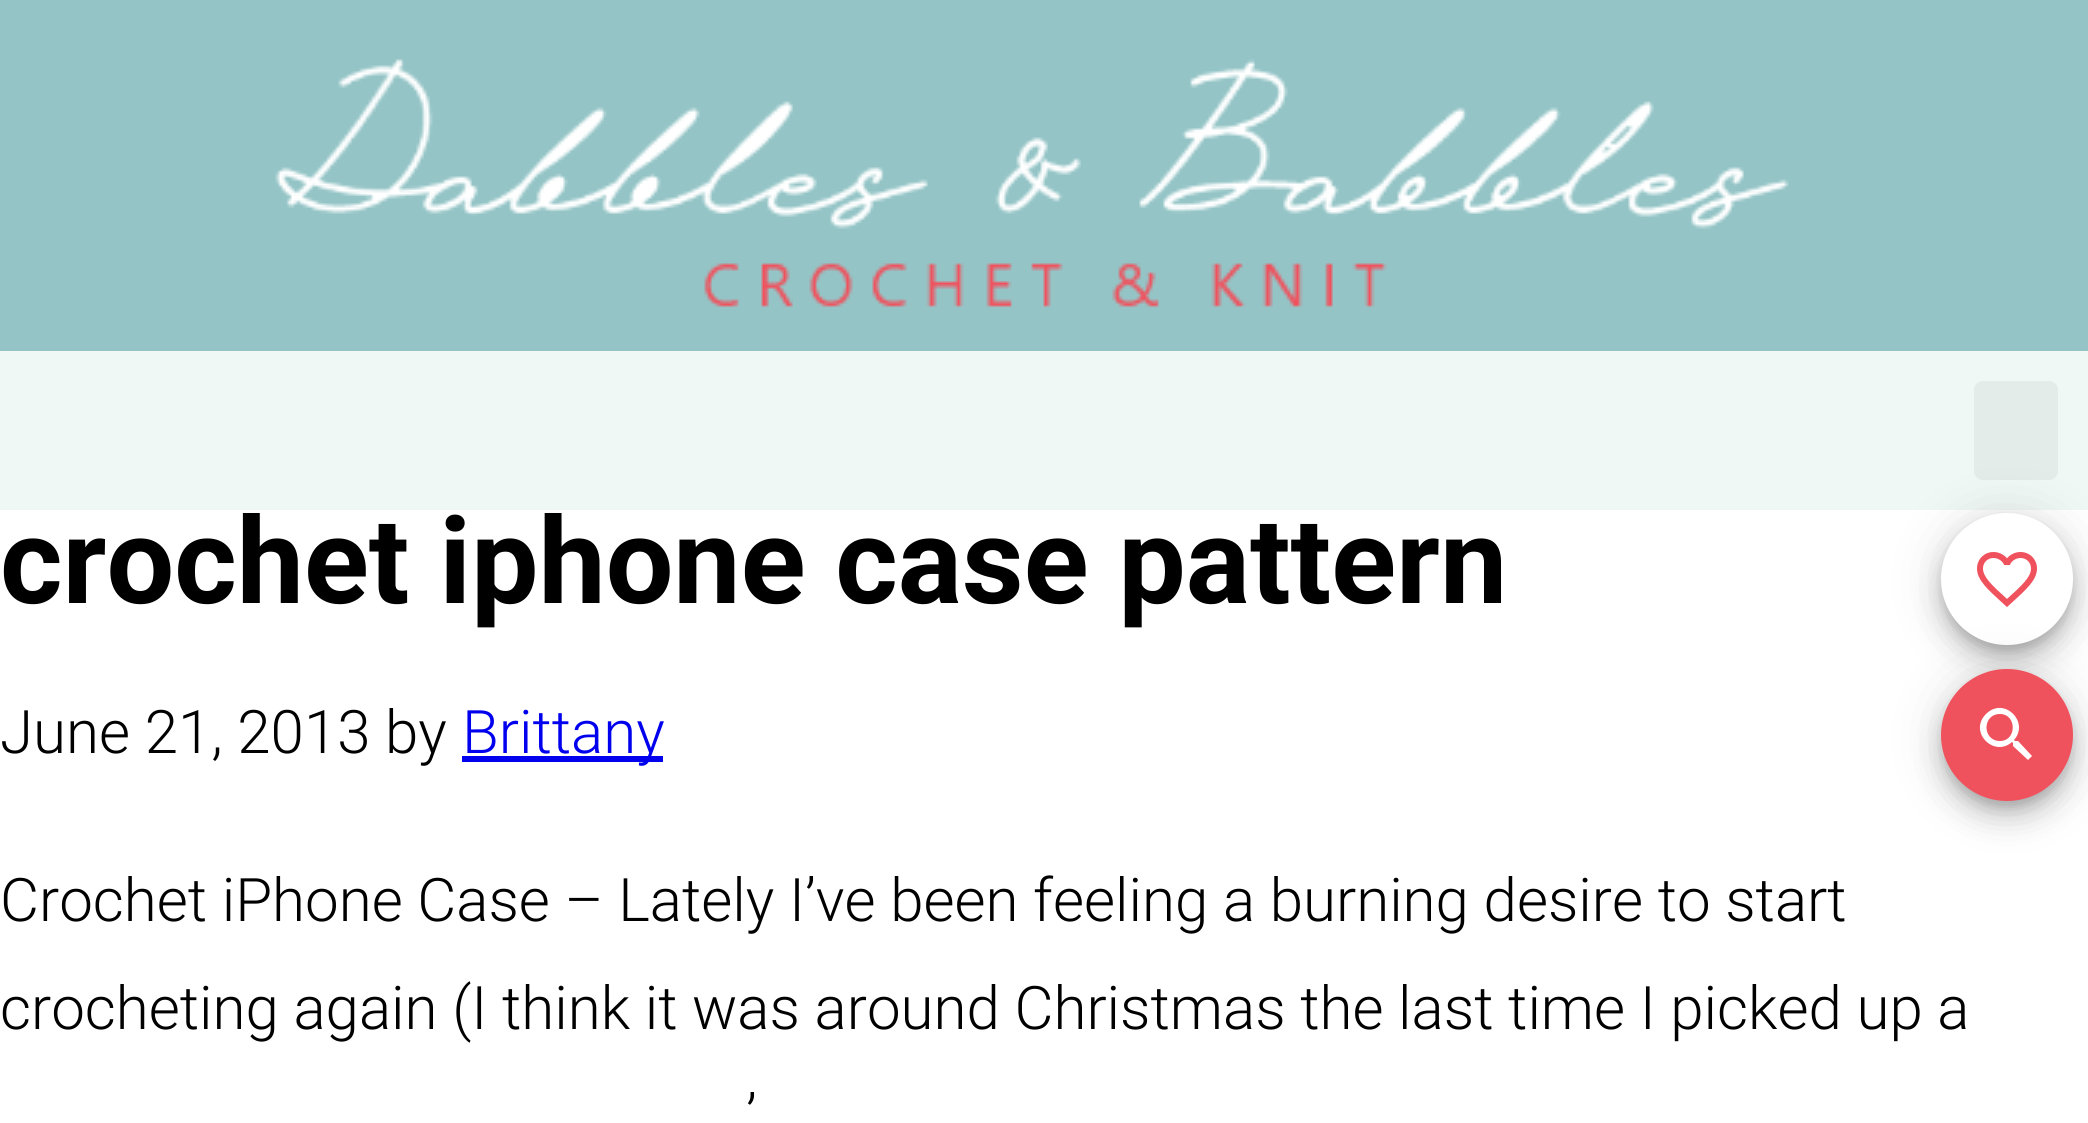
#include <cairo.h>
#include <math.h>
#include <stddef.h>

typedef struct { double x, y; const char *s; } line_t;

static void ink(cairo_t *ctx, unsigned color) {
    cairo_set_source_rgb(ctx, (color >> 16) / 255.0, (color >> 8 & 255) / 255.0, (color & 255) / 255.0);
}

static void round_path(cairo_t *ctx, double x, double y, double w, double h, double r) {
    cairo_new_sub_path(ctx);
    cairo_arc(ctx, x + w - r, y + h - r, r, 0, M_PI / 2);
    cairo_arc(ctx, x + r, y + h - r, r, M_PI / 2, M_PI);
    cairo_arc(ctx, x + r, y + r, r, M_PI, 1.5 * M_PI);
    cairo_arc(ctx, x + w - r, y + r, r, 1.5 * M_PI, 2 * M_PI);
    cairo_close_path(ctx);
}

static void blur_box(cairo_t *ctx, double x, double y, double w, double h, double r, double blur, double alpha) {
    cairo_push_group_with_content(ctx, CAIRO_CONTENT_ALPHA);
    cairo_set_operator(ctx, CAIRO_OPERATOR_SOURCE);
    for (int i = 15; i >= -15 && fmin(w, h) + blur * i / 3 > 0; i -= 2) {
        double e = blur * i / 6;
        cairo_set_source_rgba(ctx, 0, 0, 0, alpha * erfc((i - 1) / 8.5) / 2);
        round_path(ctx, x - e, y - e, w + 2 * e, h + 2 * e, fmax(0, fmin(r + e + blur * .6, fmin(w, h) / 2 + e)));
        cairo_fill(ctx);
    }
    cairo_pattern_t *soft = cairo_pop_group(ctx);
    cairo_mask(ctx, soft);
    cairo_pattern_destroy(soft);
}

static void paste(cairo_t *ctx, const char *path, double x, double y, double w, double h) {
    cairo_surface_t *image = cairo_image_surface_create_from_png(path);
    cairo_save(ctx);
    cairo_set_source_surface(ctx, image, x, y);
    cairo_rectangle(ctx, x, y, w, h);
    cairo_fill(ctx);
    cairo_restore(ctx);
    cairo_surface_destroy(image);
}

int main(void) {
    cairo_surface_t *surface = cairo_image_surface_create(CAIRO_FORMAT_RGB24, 2088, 1123);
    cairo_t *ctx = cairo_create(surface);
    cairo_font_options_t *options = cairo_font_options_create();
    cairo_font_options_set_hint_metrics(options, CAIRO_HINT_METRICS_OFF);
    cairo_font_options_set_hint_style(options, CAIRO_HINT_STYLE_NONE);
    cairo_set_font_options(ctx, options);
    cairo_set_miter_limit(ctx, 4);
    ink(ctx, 0xFFFFFF);
    cairo_paint(ctx);
    ink(ctx, 0x94C4C6);
    cairo_rectangle(ctx, 0, 0, 2088, 351);
    cairo_fill(ctx);
    paste(ctx, "media/1.png", 275, 59, 1514, 248);
    ink(ctx, 0xF0F8F6);
    cairo_rectangle(ctx, 0, 351, 2088, 159);
    cairo_fill(ctx);
    ink(ctx, 0xE4ECEA);
    round_path(ctx, 1974, 381, 84, 99, 9);
    cairo_fill(ctx);
    cairo_select_font_face(ctx, "Roboto", CAIRO_FONT_SLANT_NORMAL, CAIRO_FONT_WEIGHT_BOLD);
    cairo_set_font_size(ctx, 120);
    ink(ctx, 0x000000);
    cairo_move_to(ctx, 0, 603);
    cairo_show_text(ctx, "crochet iphone case pattern");
    cairo_select_font_face(ctx, "Roboto Light", CAIRO_FONT_SLANT_NORMAL, CAIRO_FONT_WEIGHT_NORMAL);
    cairo_set_font_size(ctx, 60);
    cairo_move_to(ctx, 0, 753);
    cairo_show_text(ctx, "June 21, 2013 by");
    ink(ctx, 0x0000EE);
    cairo_rectangle(ctx, 462, 756, 201, 6);
    cairo_fill(ctx);
    cairo_move_to(ctx, 462, 753);
    cairo_show_text(ctx, "Brittany");
    ink(ctx, 0x000000);
    {
        static const line_t items[] = {
            {0, 921, "Crochet iPhone Case – Lately I’ve been feeling a burning desire to start"},
            {0, 1029, "crocheting again (I think it was around Christmas the last time I picked up a"},
            {746, 1137, "’"},
        };
        for (size_t i = 0; i < sizeof items / sizeof *items; i++) {
            cairo_move_to(ctx, items[i].x, items[i].y);
            cairo_show_text(ctx, items[i].s);
        }
    }
    ink(ctx, 0x000000);
    blur_box(ctx, 1941, 516, 132, 132, 66, 27, 0.12);
    blur_box(ctx, 1941, 531, 132, 132, 66, 15, 0.14);
    blur_box(ctx, 1944, 525, 126, 126, 63, 7.5, 0.2);
    ink(ctx, 0xFFFFFF);
    cairo_arc(ctx, 2007, 579, 66, 0, 2 * M_PI);
    cairo_fill(ctx);
    paste(ctx, "media/2.png", 1977, 552, 60, 55);
    ink(ctx, 0x000000);
    blur_box(ctx, 1941, 672, 132, 132, 66, 27, 0.12);
    blur_box(ctx, 1941, 687, 132, 132, 66, 15, 0.14);
    blur_box(ctx, 1944, 681, 126, 126, 63, 7.5, 0.2);
    ink(ctx, 0xF0525D);
    cairo_arc(ctx, 2007, 735, 66, 0, 2 * M_PI);
    cairo_fill(ctx);
    ink(ctx, 0xFFFFFF);
    cairo_new_path(ctx);
    cairo_move_to(ctx, 2018, 741);
    cairo_line_to(ctx, 2015, 741);
    cairo_line_to(ctx, 2014, 740);
    cairo_curve_to(ctx, 2030, 722, 2004, 696, 1986, 714);
    cairo_curve_to(ctx, 1968, 732, 1994, 758, 2012, 742);
    cairo_line_to(ctx, 2013, 743);
    cairo_line_to(ctx, 2013, 746);
    cairo_line_to(ctx, 2028, 760);
    cairo_line_to(ctx, 2032, 756);
    cairo_close_path(ctx);
    cairo_move_to(ctx, 2000, 741);
    cairo_curve_to(ctx, 1982, 741, 1982, 714, 2000, 714);
    cairo_curve_to(ctx, 2017, 714, 2017, 741, 2000, 741);
    cairo_close_path(ctx);
    cairo_fill(ctx);
    cairo_surface_write_to_png(surface, "image.png");
    cairo_font_options_destroy(options);
    cairo_destroy(ctx);
    cairo_surface_destroy(surface);
    return 0;
}
